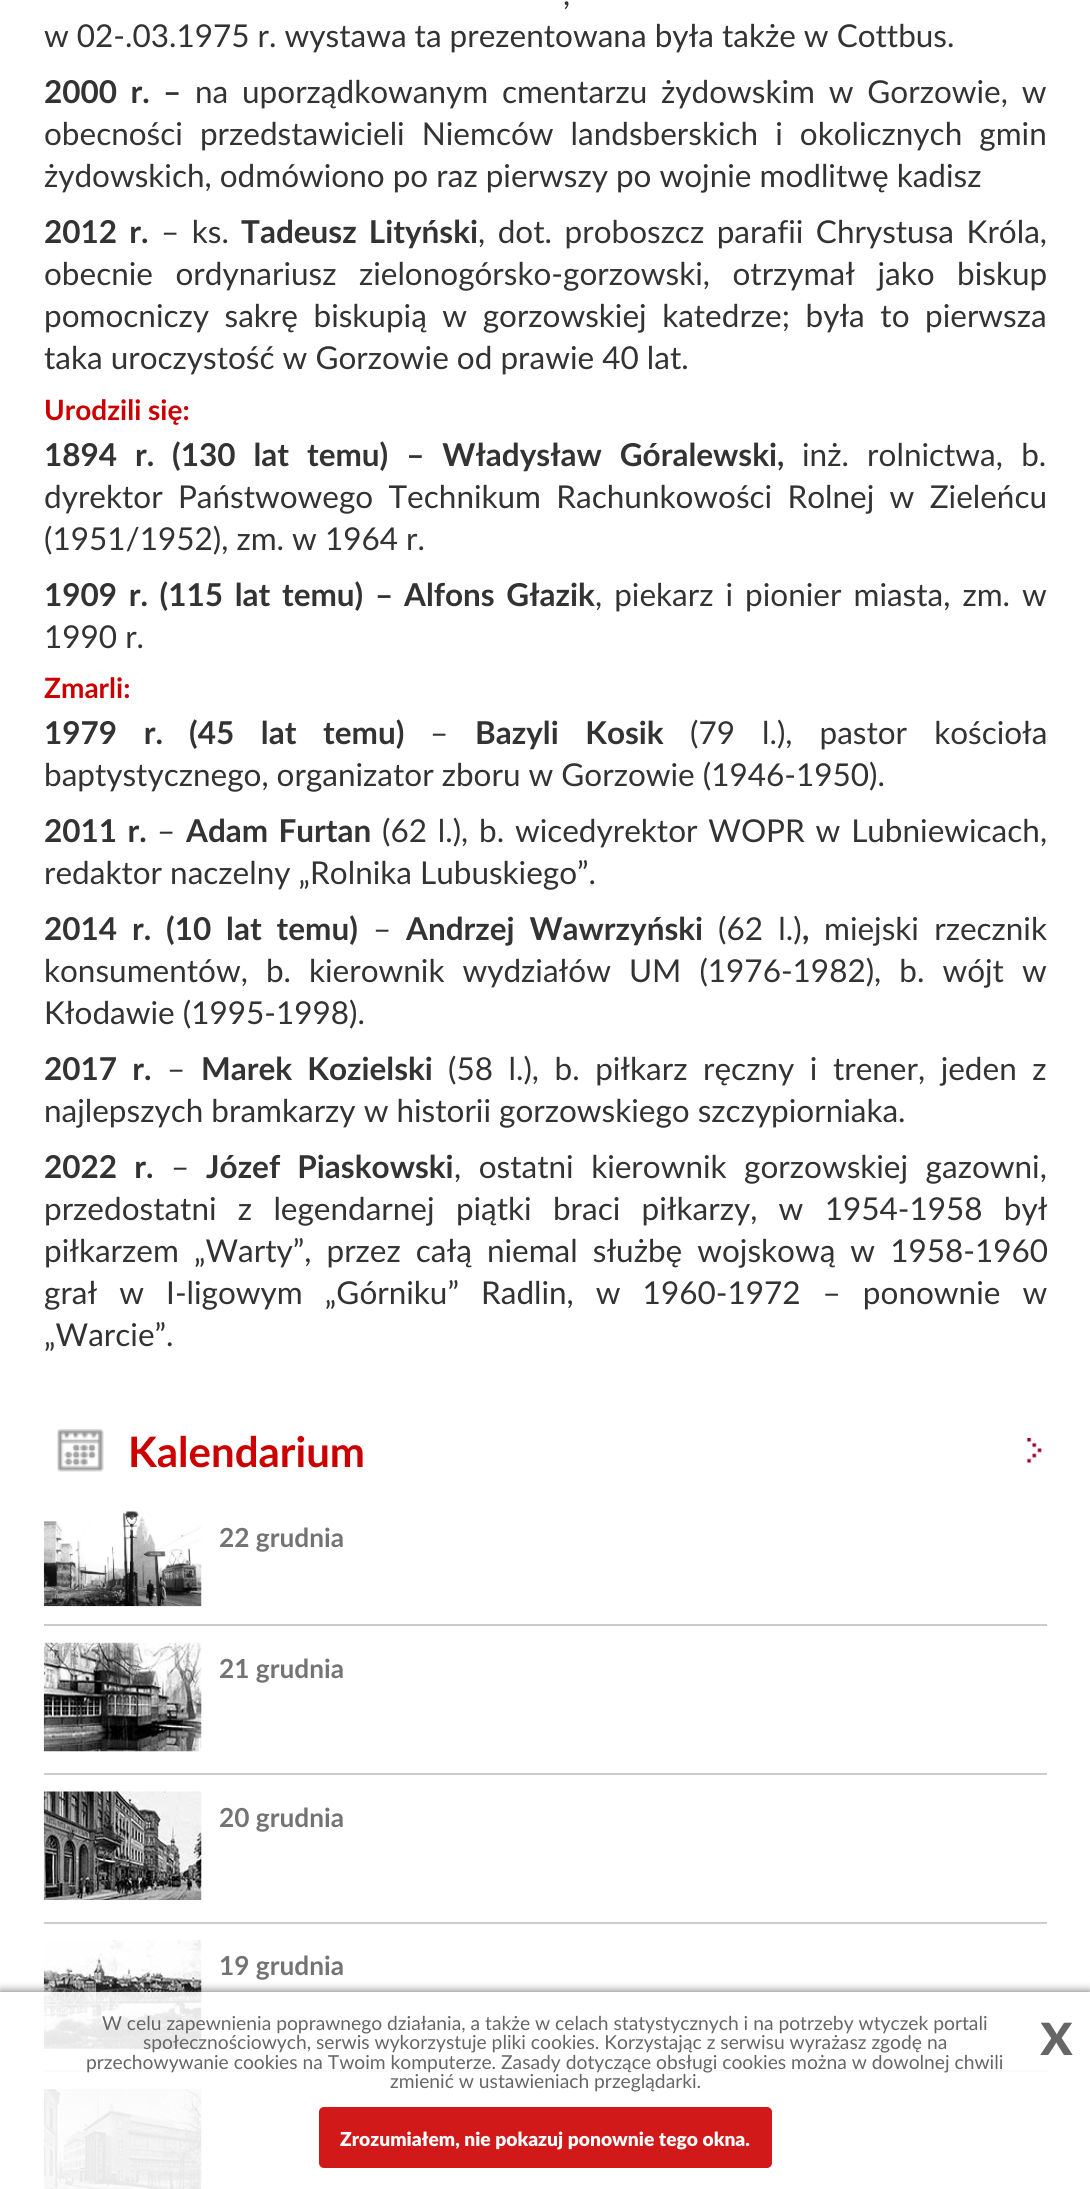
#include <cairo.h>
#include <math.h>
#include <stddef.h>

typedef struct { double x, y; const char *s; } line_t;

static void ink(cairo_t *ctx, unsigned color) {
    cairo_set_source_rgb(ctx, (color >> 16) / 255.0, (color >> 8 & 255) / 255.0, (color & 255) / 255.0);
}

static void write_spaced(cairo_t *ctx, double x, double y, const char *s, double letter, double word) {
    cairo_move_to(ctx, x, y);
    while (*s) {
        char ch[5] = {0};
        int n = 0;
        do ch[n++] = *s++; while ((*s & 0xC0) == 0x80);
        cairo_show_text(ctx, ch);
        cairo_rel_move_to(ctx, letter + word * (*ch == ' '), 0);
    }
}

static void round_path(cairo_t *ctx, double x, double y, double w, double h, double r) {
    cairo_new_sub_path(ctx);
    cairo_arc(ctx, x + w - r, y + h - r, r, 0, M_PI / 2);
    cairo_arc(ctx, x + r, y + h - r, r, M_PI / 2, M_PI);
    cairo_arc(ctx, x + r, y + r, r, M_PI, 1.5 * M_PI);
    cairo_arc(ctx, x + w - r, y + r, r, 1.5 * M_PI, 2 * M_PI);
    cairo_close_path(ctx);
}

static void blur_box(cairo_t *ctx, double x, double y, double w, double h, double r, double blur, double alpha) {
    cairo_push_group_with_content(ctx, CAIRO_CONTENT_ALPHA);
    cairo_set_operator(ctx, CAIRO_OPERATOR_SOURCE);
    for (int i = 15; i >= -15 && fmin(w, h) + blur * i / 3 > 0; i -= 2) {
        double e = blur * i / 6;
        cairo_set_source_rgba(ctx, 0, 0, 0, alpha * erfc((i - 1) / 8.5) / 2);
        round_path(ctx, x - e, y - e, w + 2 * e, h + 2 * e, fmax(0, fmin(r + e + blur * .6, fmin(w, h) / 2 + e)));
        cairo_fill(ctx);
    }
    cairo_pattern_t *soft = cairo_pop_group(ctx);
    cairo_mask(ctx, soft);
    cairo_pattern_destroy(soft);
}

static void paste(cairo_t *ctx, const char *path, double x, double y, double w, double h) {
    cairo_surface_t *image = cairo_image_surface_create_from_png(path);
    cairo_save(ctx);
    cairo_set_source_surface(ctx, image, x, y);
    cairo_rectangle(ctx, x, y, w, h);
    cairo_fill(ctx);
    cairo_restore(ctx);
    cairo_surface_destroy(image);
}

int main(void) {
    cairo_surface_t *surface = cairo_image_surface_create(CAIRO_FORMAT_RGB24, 1090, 2189);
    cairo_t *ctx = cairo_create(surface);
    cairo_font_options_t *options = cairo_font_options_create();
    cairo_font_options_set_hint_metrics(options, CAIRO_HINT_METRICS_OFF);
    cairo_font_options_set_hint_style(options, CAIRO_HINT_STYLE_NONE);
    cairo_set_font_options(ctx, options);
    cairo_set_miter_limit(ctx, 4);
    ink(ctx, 0xFFFFFF);
    cairo_paint(ctx);
    cairo_select_font_face(ctx, "Lato", CAIRO_FONT_SLANT_NORMAL, CAIRO_FONT_WEIGHT_NORMAL);
    cairo_set_font_size(ctx, 31.5);
    ink(ctx, 0x333333);
    write_spaced(ctx, 563, 5, ",", 0, 3);
    cairo_move_to(ctx, 44, 47);
    cairo_show_text(ctx, "w 02-.03.1975 r. wystawa ta prezentowana była także w Cottbus.");
    cairo_select_font_face(ctx, "Lato", CAIRO_FONT_SLANT_NORMAL, CAIRO_FONT_WEIGHT_BOLD);
    write_spaced(ctx, 44, 103, "2000 r. –", 0, 5.75);
    cairo_select_font_face(ctx, "Lato", CAIRO_FONT_SLANT_NORMAL, CAIRO_FONT_WEIGHT_NORMAL);
    write_spaced(ctx, 195, 103, "na uporządkowanym cmentarzu żydowskim w Gorzowie, w", 0, 5.75);
    write_spaced(ctx, 44, 145, "obecności przedstawicieli Niemców landsberskich i okolicznych gmin", 0, 9);
    cairo_move_to(ctx, 44, 187);
    cairo_show_text(ctx, "żydowskich, odmówiono po raz pierwszy po wojnie modlitwę kadisz");
    cairo_select_font_face(ctx, "Lato", CAIRO_FONT_SLANT_NORMAL, CAIRO_FONT_WEIGHT_BOLD);
    write_spaced(ctx, 44, 243, "2012 r.", 0, 4.5);
    cairo_select_font_face(ctx, "Lato", CAIRO_FONT_SLANT_NORMAL, CAIRO_FONT_WEIGHT_NORMAL);
    write_spaced(ctx, 161, 243, "– ks.", 0, 4.5);
    cairo_select_font_face(ctx, "Lato", CAIRO_FONT_SLANT_NORMAL, CAIRO_FONT_WEIGHT_BOLD);
    write_spaced(ctx, 241, 243, "Tadeusz Lityński", 0, 4.5);
    cairo_select_font_face(ctx, "Lato", CAIRO_FONT_SLANT_NORMAL, CAIRO_FONT_WEIGHT_NORMAL);
    write_spaced(ctx, 478, 243, ", dot. proboszcz parafii Chrystusa Króla,", 0, 4.5);
    write_spaced(ctx, 44, 285, "obecnie ordynariusz zielonogórsko-gorzowski, otrzymał jako biskup", 0, 14.5);
    write_spaced(ctx, 44, 327, "pomocniczy sakrę biskupią w gorzowskiej katedrze; była to pierwsza", 0, 7.5);
    cairo_move_to(ctx, 44, 369);
    cairo_show_text(ctx, "taka uroczystość w Gorzowie od prawie 40 lat.");
    cairo_select_font_face(ctx, "Lato", CAIRO_FONT_SLANT_NORMAL, CAIRO_FONT_WEIGHT_BOLD);
    cairo_set_font_size(ctx, 28);
    ink(ctx, 0xCC0000);
    cairo_move_to(ctx, 44, 420);
    cairo_show_text(ctx, "Urodzili się:");
    cairo_set_font_size(ctx, 31.5);
    ink(ctx, 0x333333);
    write_spaced(ctx, 44, 466, "1894 r. (130 lat temu) – Władysław Góralewski,", 0, 10.25);
    cairo_select_font_face(ctx, "Lato", CAIRO_FONT_SLANT_NORMAL, CAIRO_FONT_WEIGHT_NORMAL);
    write_spaced(ctx, 802, 466, "inż. rolnictwa, b.", 0, 10.25);
    write_spaced(ctx, 44, 508, "dyrektor Państwowego Technikum Rachunkowości Rolnej w Zieleńcu", 0, 7.25);
    cairo_move_to(ctx, 44, 550);
    cairo_show_text(ctx, "(1951/1952), zm. w 1964 r.");
    cairo_select_font_face(ctx, "Lato", CAIRO_FONT_SLANT_NORMAL, CAIRO_FONT_WEIGHT_BOLD);
    write_spaced(ctx, 44, 606, "1909 r. (115 lat temu) –", 0, 4);
    write_spaced(ctx, 404, 606, "Alfons Głazik", 0, 4);
    cairo_select_font_face(ctx, "Lato", CAIRO_FONT_SLANT_NORMAL, CAIRO_FONT_WEIGHT_NORMAL);
    write_spaced(ctx, 595, 606, ", piekarz i pionier miasta, zm. w", 0, 4);
    cairo_move_to(ctx, 44, 648);
    cairo_show_text(ctx, "1990 r.");
    cairo_select_font_face(ctx, "Lato", CAIRO_FONT_SLANT_NORMAL, CAIRO_FONT_WEIGHT_BOLD);
    cairo_set_font_size(ctx, 28);
    ink(ctx, 0xCC0000);
    cairo_move_to(ctx, 44, 698);
    cairo_show_text(ctx, "Zmarli:");
    cairo_set_font_size(ctx, 31.5);
    ink(ctx, 0x333333);
    write_spaced(ctx, 44, 744, "1979 r.", 0, 19);
    write_spaced(ctx, 189, 744, "(45 lat temu)", 0, 19);
    cairo_select_font_face(ctx, "Lato", CAIRO_FONT_SLANT_NORMAL, CAIRO_FONT_WEIGHT_NORMAL);
    cairo_move_to(ctx, 430, 744);
    cairo_show_text(ctx, "–");
    cairo_select_font_face(ctx, "Lato", CAIRO_FONT_SLANT_NORMAL, CAIRO_FONT_WEIGHT_BOLD);
    write_spaced(ctx, 475, 744, "Bazyli Kosik", 0, 19);
    cairo_select_font_face(ctx, "Lato", CAIRO_FONT_SLANT_NORMAL, CAIRO_FONT_WEIGHT_NORMAL);
    write_spaced(ctx, 690, 744, "(79 l.), pastor kościoła", 0, 19);
    cairo_move_to(ctx, 44, 786);
    cairo_show_text(ctx, "baptystycznego, organizator zboru w Gorzowie (1946-1950).");
    cairo_select_font_face(ctx, "Lato", CAIRO_FONT_SLANT_NORMAL, CAIRO_FONT_WEIGHT_BOLD);
    write_spaced(ctx, 44, 842, "2011 r.", 0, 2.75);
    cairo_select_font_face(ctx, "Lato", CAIRO_FONT_SLANT_NORMAL, CAIRO_FONT_WEIGHT_NORMAL);
    cairo_move_to(ctx, 157, 842);
    cairo_show_text(ctx, "–");
    cairo_select_font_face(ctx, "Lato", CAIRO_FONT_SLANT_NORMAL, CAIRO_FONT_WEIGHT_BOLD);
    write_spaced(ctx, 186, 842, "Adam Furtan", 0, 2.75);
    cairo_select_font_face(ctx, "Lato", CAIRO_FONT_SLANT_NORMAL, CAIRO_FONT_WEIGHT_NORMAL);
    write_spaced(ctx, 382, 842, "(62 l.), b. wicedyrektor WOPR w Lubniewicach,", 0, 2.75);
    cairo_move_to(ctx, 44, 884);
    cairo_show_text(ctx, "redaktor naczelny „Rolnika Lubuskiego”.");
    cairo_select_font_face(ctx, "Lato", CAIRO_FONT_SLANT_NORMAL, CAIRO_FONT_WEIGHT_BOLD);
    write_spaced(ctx, 44, 940, "2014 r.", 0, 7.25);
    write_spaced(ctx, 166, 940, "(10 lat temu)", 0, 7.25);
    cairo_select_font_face(ctx, "Lato", CAIRO_FONT_SLANT_NORMAL, CAIRO_FONT_WEIGHT_NORMAL);
    cairo_move_to(ctx, 373, 940);
    cairo_show_text(ctx, "–");
    cairo_select_font_face(ctx, "Lato", CAIRO_FONT_SLANT_NORMAL, CAIRO_FONT_WEIGHT_BOLD);
    write_spaced(ctx, 406, 940, "Andrzej Wawrzyński", 0, 7.25);
    cairo_select_font_face(ctx, "Lato", CAIRO_FONT_SLANT_NORMAL, CAIRO_FONT_WEIGHT_NORMAL);
    write_spaced(ctx, 718, 940, "(62 l.)", 0, 7.25);
    write_spaced(ctx, 824, 940, "miejski rzecznik", 0, 7.25);
    cairo_select_font_face(ctx, "Lato", CAIRO_FONT_SLANT_NORMAL, CAIRO_FONT_WEIGHT_BOLD);
    cairo_move_to(ctx, 802, 940);
    cairo_show_text(ctx, ",");
    cairo_select_font_face(ctx, "Lato", CAIRO_FONT_SLANT_NORMAL, CAIRO_FONT_WEIGHT_NORMAL);
    write_spaced(ctx, 44, 982, "konsumentów, b. kierownik wydziałów UM (1976-1982), b. wójt w", 0, 10);
    cairo_move_to(ctx, 44, 1024);
    cairo_show_text(ctx, "Kłodawie (1995-1998).");
    cairo_select_font_face(ctx, "Lato", CAIRO_FONT_SLANT_NORMAL, CAIRO_FONT_WEIGHT_BOLD);
    write_spaced(ctx, 44, 1080, "2017 r.", 0, 7.5);
    cairo_select_font_face(ctx, "Lato", CAIRO_FONT_SLANT_NORMAL, CAIRO_FONT_WEIGHT_NORMAL);
    cairo_move_to(ctx, 167, 1080);
    cairo_show_text(ctx, "–");
    cairo_select_font_face(ctx, "Lato", CAIRO_FONT_SLANT_NORMAL, CAIRO_FONT_WEIGHT_BOLD);
    write_spaced(ctx, 201, 1080, "Marek Kozielski", 0, 7.5);
    cairo_select_font_face(ctx, "Lato", CAIRO_FONT_SLANT_NORMAL, CAIRO_FONT_WEIGHT_NORMAL);
    write_spaced(ctx, 448, 1080, "(58 l.), b. piłkarz ręczny i trener, jeden z", 0, 7.5);
    cairo_move_to(ctx, 44, 1122);
    cairo_show_text(ctx, "najlepszych bramkarzy w historii gorzowskiego szczypiorniaka.");
    cairo_select_font_face(ctx, "Lato", CAIRO_FONT_SLANT_NORMAL, CAIRO_FONT_WEIGHT_BOLD);
    write_spaced(ctx, 44, 1178, "2022 r.", 0, 9.5);
    cairo_select_font_face(ctx, "Lato", CAIRO_FONT_SLANT_NORMAL, CAIRO_FONT_WEIGHT_NORMAL);
    cairo_move_to(ctx, 171, 1178);
    cairo_show_text(ctx, "–");
    cairo_select_font_face(ctx, "Lato", CAIRO_FONT_SLANT_NORMAL, CAIRO_FONT_WEIGHT_BOLD);
    write_spaced(ctx, 206, 1178, "Józef Piaskowski", 0, 9.5);
    cairo_select_font_face(ctx, "Lato", CAIRO_FONT_SLANT_NORMAL, CAIRO_FONT_WEIGHT_NORMAL);
    write_spaced(ctx, 454, 1178, ", ostatni kierownik gorzowskiej gazowni,", 0, 9.5);
    write_spaced(ctx, 44, 1220, "przedostatni z legendarnej piątki braci piłkarzy, w 1954-1958 był", 0, 13.25);
    write_spaced(ctx, 44, 1262, "piłkarzem „Warty”, przez całą niemal służbę wojskową w 1958-1960", 0, 7);
    write_spaced(ctx, 44, 1304, "grał w I-ligowym „Górniku” Radlin, w 1960-1972 – ponownie w", 0, 14);
    cairo_move_to(ctx, 44, 1346);
    cairo_show_text(ctx, "„Warcie”.");
    paste(ctx, "media/1.png", 57, 1429, 47, 43);
    cairo_select_font_face(ctx, "Lato", CAIRO_FONT_SLANT_NORMAL, CAIRO_FONT_WEIGHT_BOLD);
    cairo_set_font_size(ctx, 42);
    ink(ctx, 0xCC0000);
    cairo_move_to(ctx, 128, 1467);
    cairo_show_text(ctx, "Kalendarium");
    paste(ctx, "media/2.png", 1026, 1438, 16, 25);
    ink(ctx, 0xCCCCCC);
    cairo_rectangle(ctx, 44, 1624, 1003, 2);
    cairo_fill(ctx);
    ink(ctx, 0xEEEEEE);
    cairo_rectangle(ctx, 44, 1606, 157, 1);
    cairo_fill(ctx);
    paste(ctx, "media/3.png", 43, 1511, 159, 95);
    cairo_set_font_size(ctx, 26.25);
    ink(ctx, 0x747474);
    cairo_move_to(ctx, 219, 1547);
    cairo_show_text(ctx, "22 grudnia");
    ink(ctx, 0xCCCCCC);
    cairo_rectangle(ctx, 44, 1773, 1003, 2);
    cairo_fill(ctx);
    paste(ctx, "media/4.png", 43, 1642, 159, 110);
    ink(ctx, 0x747474);
    cairo_move_to(ctx, 219, 1678);
    cairo_show_text(ctx, "21 grudnia");
    ink(ctx, 0xCCCCCC);
    cairo_rectangle(ctx, 44, 1922, 1003, 2);
    cairo_fill(ctx);
    paste(ctx, "media/5.png", 43, 1791, 159, 109);
    ink(ctx, 0x747474);
    cairo_move_to(ctx, 219, 1827);
    cairo_show_text(ctx, "20 grudnia");
    ink(ctx, 0xCCCCCC);
    cairo_rectangle(ctx, 44, 2070, 1003, 2);
    cairo_fill(ctx);
    paste(ctx, "media/6.png", 43, 1940, 159, 109);
    ink(ctx, 0x747474);
    cairo_move_to(ctx, 219, 1975);
    cairo_show_text(ctx, "19 grudnia");
    paste(ctx, "media/7.png", 43, 2089, 159, 100);
    cairo_save(ctx);
    cairo_rectangle(ctx, 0, 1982, 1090, 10);
    cairo_clip(ctx);
    ink(ctx, 0x555555);
    blur_box(ctx, 0, 1992, 1090, 197, 0, 5, 0.9);
    cairo_restore(ctx);
    cairo_set_source_rgba(ctx, 1, 1, 1, 0.9);
    cairo_rectangle(ctx, 43, 1992, 1004, 197);
    cairo_fill(ctx);
    cairo_select_font_face(ctx, "Lato", CAIRO_FONT_SLANT_NORMAL, CAIRO_FONT_WEIGHT_NORMAL);
    cairo_set_font_size(ctx, 19.25);
    ink(ctx, 0x666666);
    {
        static const line_t items[] = {
            {102, 2030, "W celu zapewnienia poprawnego działania, a także w celach statystycznych i na potrzeby wtyczek portali"},
            {143, 2049, "społecznościowych, serwis wykorzystuje pliki cookies. Korzystając z serwisu wyrażasz zgodę na"},
            {86, 2069, "przechowywanie cookies na Twoim komputerze. Zasady dotyczące obsługi cookies można w dowolnej chwili"},
            {390, 2088, "zmienić w ustawieniach przeglądarki."},
        };
        for (size_t i = 0; i < sizeof items / sizeof *items; i++) {
            cairo_move_to(ctx, items[i].x, items[i].y);
            cairo_show_text(ctx, items[i].s);
        }
    }
    cairo_set_source_rgba(ctx, 0.8, 0, 0, 0.9);
    round_path(ctx, 319, 2107, 453, 61, 5);
    cairo_fill(ctx);
    cairo_select_font_face(ctx, "Lato Black", CAIRO_FONT_SLANT_NORMAL, CAIRO_FONT_WEIGHT_NORMAL);
    ink(ctx, 0xFFFFFF);
    cairo_move_to(ctx, 340, 2146);
    cairo_show_text(ctx, "Zrozumiałem, nie pokazuj ponownie tego okna.");
    cairo_select_font_face(ctx, "Lato", CAIRO_FONT_SLANT_NORMAL, CAIRO_FONT_WEIGHT_BOLD);
    cairo_set_font_size(ctx, 63);
    ink(ctx, 0x666666);
    cairo_move_to(ctx, 1040, 2055);
    cairo_show_text(ctx, "x");
    cairo_surface_write_to_png(surface, "image.png");
    cairo_font_options_destroy(options);
    cairo_destroy(ctx);
    cairo_surface_destroy(surface);
    return 0;
}
